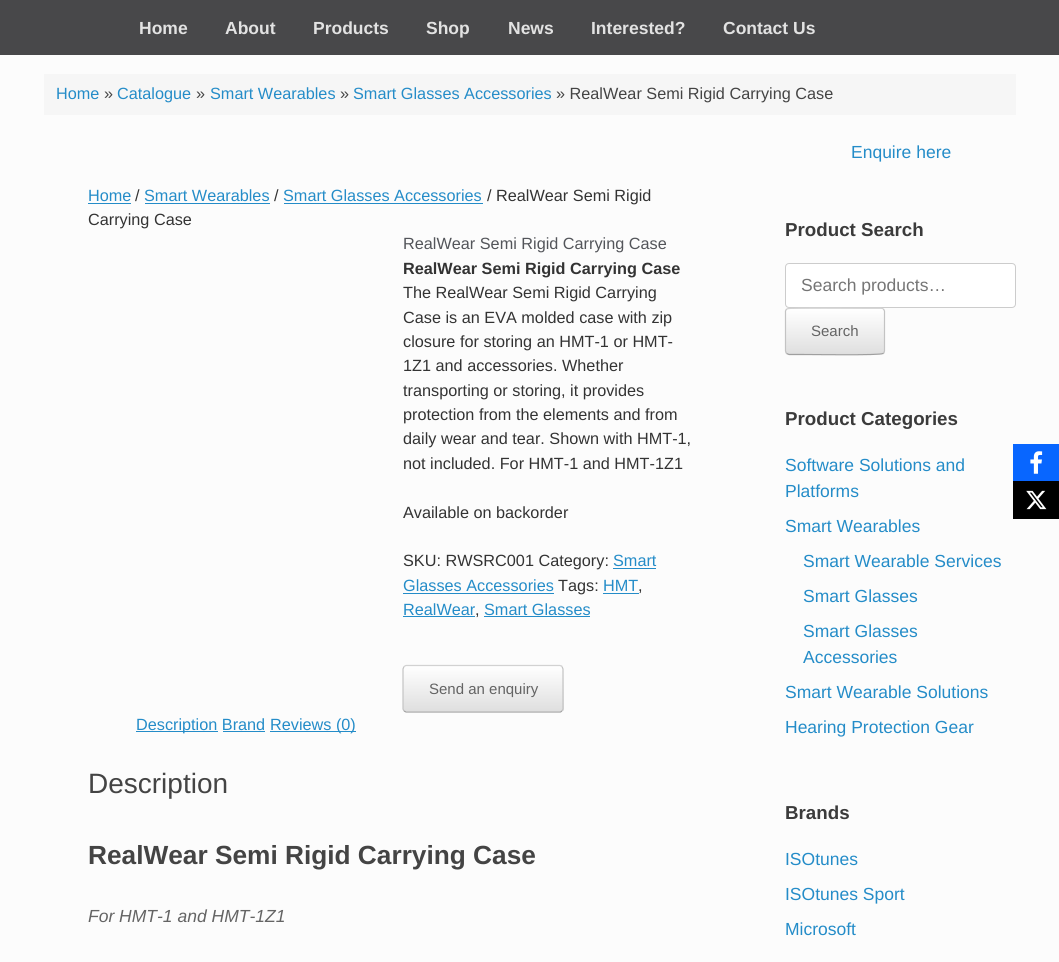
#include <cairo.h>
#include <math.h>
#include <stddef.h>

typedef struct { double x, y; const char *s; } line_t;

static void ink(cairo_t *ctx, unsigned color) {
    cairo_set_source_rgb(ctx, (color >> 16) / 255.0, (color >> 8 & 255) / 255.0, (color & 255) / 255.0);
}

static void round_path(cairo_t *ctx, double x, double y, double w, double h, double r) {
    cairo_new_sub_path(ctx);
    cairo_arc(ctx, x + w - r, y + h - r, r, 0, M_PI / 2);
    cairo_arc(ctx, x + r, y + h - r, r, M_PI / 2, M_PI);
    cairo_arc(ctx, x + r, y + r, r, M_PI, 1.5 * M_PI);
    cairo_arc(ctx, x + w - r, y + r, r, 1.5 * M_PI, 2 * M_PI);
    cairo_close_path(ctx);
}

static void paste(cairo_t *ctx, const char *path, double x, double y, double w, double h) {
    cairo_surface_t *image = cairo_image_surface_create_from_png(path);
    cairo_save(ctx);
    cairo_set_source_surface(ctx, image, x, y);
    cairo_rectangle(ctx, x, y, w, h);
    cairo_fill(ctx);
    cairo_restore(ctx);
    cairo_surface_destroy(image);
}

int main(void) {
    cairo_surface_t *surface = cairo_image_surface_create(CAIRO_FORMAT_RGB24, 1059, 962);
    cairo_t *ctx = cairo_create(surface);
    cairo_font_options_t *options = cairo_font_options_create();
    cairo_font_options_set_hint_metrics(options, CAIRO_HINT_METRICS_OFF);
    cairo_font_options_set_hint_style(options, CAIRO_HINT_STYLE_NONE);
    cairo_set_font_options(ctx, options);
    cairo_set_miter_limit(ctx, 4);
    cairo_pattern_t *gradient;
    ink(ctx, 0xFCFCFC);
    cairo_paint(ctx);
    ink(ctx, 0x48484A);
    cairo_rectangle(ctx, 0, 0, 1059, 55);
    cairo_fill(ctx);
    cairo_select_font_face(ctx, "Liberation Sans", CAIRO_FONT_SLANT_NORMAL, CAIRO_FONT_WEIGHT_BOLD);
    cairo_set_font_size(ctx, 17.5);
    ink(ctx, 0xE2E2E2);
    {
        static const line_t items[] = {
            {139, 34, "Home"},
            {225, 34, "About"},
            {313, 34, "Products"},
            {426, 34, "Shop"},
            {508, 34, "News"},
            {591, 34, "Interested?"},
            {723, 34, "Contact Us"},
        };
        for (size_t i = 0; i < sizeof items / sizeof *items; i++) {
            cairo_move_to(ctx, items[i].x, items[i].y);
            cairo_show_text(ctx, items[i].s);
        }
    }
    ink(ctx, 0xF6F6F6);
    cairo_rectangle(ctx, 44, 74, 972, 41);
    cairo_fill(ctx);
    cairo_select_font_face(ctx, "Liberation Sans", CAIRO_FONT_SLANT_NORMAL, CAIRO_FONT_WEIGHT_NORMAL);
    cairo_set_font_size(ctx, 16.25);
    ink(ctx, 0x248CC8);
    cairo_move_to(ctx, 56, 99);
    cairo_show_text(ctx, "Home");
    ink(ctx, 0x444444);
    cairo_move_to(ctx, 104, 99);
    cairo_show_text(ctx, "»");
    ink(ctx, 0x248CC8);
    cairo_move_to(ctx, 117, 99);
    cairo_show_text(ctx, "Catalogue");
    ink(ctx, 0x444444);
    cairo_move_to(ctx, 196, 99);
    cairo_show_text(ctx, "»");
    ink(ctx, 0x248CC8);
    cairo_move_to(ctx, 210, 99);
    cairo_show_text(ctx, "Smart Wearables");
    ink(ctx, 0x444444);
    cairo_move_to(ctx, 340, 99);
    cairo_show_text(ctx, "»");
    ink(ctx, 0x248CC8);
    cairo_move_to(ctx, 353, 99);
    cairo_show_text(ctx, "Smart Glasses Accessories");
    ink(ctx, 0x444444);
    cairo_move_to(ctx, 556, 99);
    cairo_show_text(ctx, "» RealWear Semi Rigid Carrying Case");
    ink(ctx, 0x248CC8);
    cairo_move_to(ctx, 88, 201);
    cairo_show_text(ctx, "Home");
    cairo_rectangle(ctx, 88, 203, 43, 1);
    cairo_fill(ctx);
    ink(ctx, 0x333333);
    cairo_move_to(ctx, 135, 201);
    cairo_show_text(ctx, "/");
    ink(ctx, 0x248CC8);
    cairo_move_to(ctx, 144, 201);
    cairo_show_text(ctx, "Smart Wearables");
    cairo_rectangle(ctx, 145, 203, 125, 1);
    cairo_fill(ctx);
    ink(ctx, 0x333333);
    cairo_move_to(ctx, 274, 201);
    cairo_show_text(ctx, "/");
    ink(ctx, 0x248CC8);
    cairo_move_to(ctx, 283, 201);
    cairo_show_text(ctx, "Smart Glasses Accessories");
    cairo_rectangle(ctx, 284, 203, 199, 1);
    cairo_fill(ctx);
    ink(ctx, 0x333333);
    cairo_move_to(ctx, 487, 201);
    cairo_show_text(ctx, "/ RealWear Semi Rigid");
    cairo_move_to(ctx, 88, 225);
    cairo_show_text(ctx, "Carrying Case");
    ink(ctx, 0x53555A);
    cairo_move_to(ctx, 403, 249);
    cairo_show_text(ctx, "RealWear Semi Rigid Carrying Case");
    cairo_select_font_face(ctx, "Liberation Sans", CAIRO_FONT_SLANT_NORMAL, CAIRO_FONT_WEIGHT_BOLD);
    ink(ctx, 0x333333);
    cairo_move_to(ctx, 403, 274);
    cairo_show_text(ctx, "RealWear Semi Rigid Carrying Case");
    cairo_select_font_face(ctx, "Liberation Sans", CAIRO_FONT_SLANT_NORMAL, CAIRO_FONT_WEIGHT_NORMAL);
    {
        static const line_t items[] = {
            {403, 298, "The RealWear Semi Rigid Carrying"},
            {403, 323, "Case is an EVA molded case with zip"},
            {403, 347, "closure for storing an HMT-1 or HMT-"},
            {403, 371, "1Z1 and accessories. Whether"},
            {403, 396, "transporting or storing, it provides"},
            {403, 420, "protection from the elements and from"},
            {403, 444, "daily wear and tear. Shown with HMT-1,"},
            {403, 469, "not included. For HMT-1 and HMT-1Z1"},
            {403, 518, "Available on backorder"},
            {403, 566, "SKU: RWSRC001 Category:"},
        };
        for (size_t i = 0; i < sizeof items / sizeof *items; i++) {
            cairo_move_to(ctx, items[i].x, items[i].y);
            cairo_show_text(ctx, items[i].s);
        }
    }
    ink(ctx, 0x248CC8);
    cairo_move_to(ctx, 613, 566);
    cairo_show_text(ctx, "Smart");
    cairo_rectangle(ctx, 613, 568, 43, 1);
    cairo_fill(ctx);
    cairo_move_to(ctx, 403, 591);
    cairo_show_text(ctx, "Glasses Accessories");
    cairo_rectangle(ctx, 403, 593, 151, 1);
    cairo_fill(ctx);
    ink(ctx, 0x333333);
    cairo_move_to(ctx, 558, 591);
    cairo_show_text(ctx, "Tags:");
    ink(ctx, 0x248CC8);
    cairo_move_to(ctx, 603, 591);
    cairo_show_text(ctx, "HMT");
    ink(ctx, 0x333333);
    cairo_move_to(ctx, 638, 591);
    cairo_show_text(ctx, ",");
    ink(ctx, 0x248CC8);
    cairo_rectangle(ctx, 603, 593, 36, 1);
    cairo_fill(ctx);
    cairo_move_to(ctx, 403, 615);
    cairo_show_text(ctx, "RealWear");
    ink(ctx, 0x333333);
    cairo_move_to(ctx, 475, 615);
    cairo_show_text(ctx, ",");
    ink(ctx, 0x248CC8);
    cairo_rectangle(ctx, 403, 616, 72, 1);
    cairo_fill(ctx);
    cairo_rectangle(ctx, 484, 616, 106, 1);
    cairo_fill(ctx);
    cairo_move_to(ctx, 484, 615);
    cairo_show_text(ctx, "Smart Glasses");
    cairo_save(ctx);
    round_path(ctx, 403, 665, 161, 48, 4);
    cairo_clip(ctx);
    gradient = cairo_pattern_create_linear(404, 666, 404, 621);
    cairo_pattern_add_color_stop_rgba(gradient, 0, 0.875, 0.875, 0.875, 1);
    cairo_pattern_add_color_stop_rgba(gradient, 1, 1, 1, 1, 1);
    cairo_set_source(ctx, gradient);
    cairo_pattern_destroy(gradient);
    cairo_rectangle(ctx, 403, 665, 161, 1);
    cairo_fill(ctx);
    gradient = cairo_pattern_create_linear(404, 711, 404, 666);
    cairo_pattern_add_color_stop_rgba(gradient, 0, 0.875, 0.875, 0.875, 1);
    cairo_pattern_add_color_stop_rgba(gradient, 1, 1, 1, 1, 1);
    cairo_set_source(ctx, gradient);
    cairo_pattern_destroy(gradient);
    cairo_rectangle(ctx, 403, 666, 161, 45);
    cairo_fill(ctx);
    gradient = cairo_pattern_create_linear(404, 756, 404, 711);
    cairo_pattern_add_color_stop_rgba(gradient, 0, 0.875, 0.875, 0.875, 1);
    cairo_pattern_add_color_stop_rgba(gradient, 1, 1, 1, 1, 1);
    cairo_set_source(ctx, gradient);
    cairo_pattern_destroy(gradient);
    cairo_rectangle(ctx, 403, 711, 161, 2);
    cairo_fill(ctx);
    cairo_restore(ctx);
    cairo_new_path(ctx);
    cairo_move_to(ctx, 404, 666.5);
    cairo_line_to(ctx, 406, 665.5);
    cairo_line_to(ctx, 534.5, 665.5);
    cairo_line_to(ctx, 560, 665.5);
    cairo_line_to(ctx, 562, 666.5);
    ink(ctx, 0xD2D2D2);
    cairo_set_line_width(ctx, 1.2);
    cairo_stroke(ctx);
    cairo_new_path(ctx);
    cairo_move_to(ctx, 562, 666.5);
    cairo_line_to(ctx, 563, 669);
    cairo_line_to(ctx, 563, 709);
    cairo_line_to(ctx, 562, 711);
    ink(ctx, 0xC3C3C3);
    cairo_stroke(ctx);
    cairo_new_path(ctx);
    cairo_move_to(ctx, 562, 711);
    cairo_line_to(ctx, 560.5, 712);
    cairo_line_to(ctx, 432, 712);
    cairo_line_to(ctx, 406, 712);
    cairo_line_to(ctx, 404, 711);
    ink(ctx, 0x9F9F9F);
    cairo_stroke(ctx);
    cairo_new_path(ctx);
    cairo_move_to(ctx, 404, 711);
    cairo_line_to(ctx, 403, 709);
    cairo_line_to(ctx, 403, 669);
    cairo_line_to(ctx, 404, 666.5);
    ink(ctx, 0xC3C3C3);
    cairo_stroke(ctx);
    cairo_set_font_size(ctx, 15);
    ink(ctx, 0x646464);
    cairo_move_to(ctx, 429, 694);
    cairo_show_text(ctx, "Send an enquiry");
    ink(ctx, 0x248CC8);
    cairo_rectangle(ctx, 136, 731, 82, 1);
    cairo_fill(ctx);
    cairo_set_font_size(ctx, 16.25);
    cairo_move_to(ctx, 136, 730);
    cairo_show_text(ctx, "Description Brand");
    cairo_rectangle(ctx, 270, 731, 86, 1);
    cairo_fill(ctx);
    cairo_move_to(ctx, 270, 730);
    cairo_show_text(ctx, "Reviews (0)");
    cairo_rectangle(ctx, 223, 731, 42, 1);
    cairo_fill(ctx);
    cairo_set_font_size(ctx, 28);
    ink(ctx, 0x444444);
    cairo_move_to(ctx, 88, 793);
    cairo_show_text(ctx, "Description");
    cairo_select_font_face(ctx, "Liberation Sans", CAIRO_FONT_SLANT_NORMAL, CAIRO_FONT_WEIGHT_BOLD);
    cairo_set_font_size(ctx, 26.25);
    cairo_move_to(ctx, 88, 864);
    cairo_show_text(ctx, "RealWear Semi Rigid Carrying Case");
    cairo_select_font_face(ctx, "Liberation Sans", CAIRO_FONT_SLANT_ITALIC, CAIRO_FONT_WEIGHT_NORMAL);
    cairo_set_font_size(ctx, 17.5);
    ink(ctx, 0x646464);
    cairo_move_to(ctx, 88, 922);
    cairo_show_text(ctx, "For HMT-1 and HMT-1Z1");
    cairo_select_font_face(ctx, "Liberation Sans", CAIRO_FONT_SLANT_NORMAL, CAIRO_FONT_WEIGHT_NORMAL);
    ink(ctx, 0x248CC8);
    cairo_move_to(ctx, 851, 158);
    cairo_show_text(ctx, "Enquire here");
    cairo_select_font_face(ctx, "Liberation Sans", CAIRO_FONT_SLANT_NORMAL, CAIRO_FONT_WEIGHT_BOLD);
    cairo_set_font_size(ctx, 18.75);
    ink(ctx, 0x3B3B3B);
    cairo_move_to(ctx, 785, 236);
    cairo_show_text(ctx, "Product Search");
    ink(ctx, 0xFFFFFF);
    round_path(ctx, 785.5, 263.5, 230, 44, 3.5);
    cairo_fill_preserve(ctx);
    ink(ctx, 0xCCCCCC);
    cairo_set_line_width(ctx, 1);
    cairo_stroke(ctx);
    cairo_select_font_face(ctx, "Liberation Sans", CAIRO_FONT_SLANT_NORMAL, CAIRO_FONT_WEIGHT_NORMAL);
    cairo_set_font_size(ctx, 17.5);
    ink(ctx, 0x757575);
    cairo_move_to(ctx, 801, 291);
    cairo_show_text(ctx, "Search products…");
    cairo_save(ctx);
    round_path(ctx, 785, 308, 100, 47, 4);
    cairo_clip(ctx);
    gradient = cairo_pattern_create_linear(786, 309, 786, 264);
    cairo_pattern_add_color_stop_rgba(gradient, 0, 0.875, 0.875, 0.875, 1);
    cairo_pattern_add_color_stop_rgba(gradient, 1, 1, 1, 1, 1);
    cairo_set_source(ctx, gradient);
    cairo_pattern_destroy(gradient);
    cairo_rectangle(ctx, 785, 308, 100, 1);
    cairo_fill(ctx);
    gradient = cairo_pattern_create_linear(786, 354, 786, 309);
    cairo_pattern_add_color_stop_rgba(gradient, 0, 0.875, 0.875, 0.875, 1);
    cairo_pattern_add_color_stop_rgba(gradient, 1, 1, 1, 1, 1);
    cairo_set_source(ctx, gradient);
    cairo_pattern_destroy(gradient);
    cairo_rectangle(ctx, 785, 309, 100, 45);
    cairo_fill(ctx);
    gradient = cairo_pattern_create_linear(786, 399, 786, 354);
    cairo_pattern_add_color_stop_rgba(gradient, 0, 0.875, 0.875, 0.875, 1);
    cairo_pattern_add_color_stop_rgba(gradient, 1, 1, 1, 1, 1);
    cairo_set_source(ctx, gradient);
    cairo_pattern_destroy(gradient);
    cairo_rectangle(ctx, 785, 354, 100, 1);
    cairo_fill(ctx);
    cairo_restore(ctx);
    cairo_new_path(ctx);
    cairo_move_to(ctx, 786.5, 309);
    cairo_line_to(ctx, 787, 309);
    cairo_curve_to(ctx, 789, 307, 857.5, 308, 866, 308);
    cairo_line_to(ctx, 881, 308);
    cairo_line_to(ctx, 883.5, 309);
    ink(ctx, 0xD2D2D2);
    cairo_set_line_width(ctx, 1.2);
    cairo_stroke(ctx);
    cairo_new_path(ctx);
    cairo_move_to(ctx, 883.5, 309);
    cairo_line_to(ctx, 884.5, 311);
    cairo_line_to(ctx, 884.5, 351);
    cairo_line_to(ctx, 883.5, 353.5);
    ink(ctx, 0xC3C3C3);
    cairo_stroke(ctx);
    cairo_new_path(ctx);
    cairo_move_to(ctx, 883.5, 353.5);
    cairo_line_to(ctx, 883, 353.5);
    cairo_curve_to(ctx, 881, 355.5, 812.5, 354.5, 804, 354.5);
    cairo_line_to(ctx, 789, 354.5);
    cairo_line_to(ctx, 786.5, 353.5);
    ink(ctx, 0x9F9F9F);
    cairo_stroke(ctx);
    cairo_new_path(ctx);
    cairo_move_to(ctx, 786.5, 353.5);
    cairo_line_to(ctx, 785.5, 351);
    cairo_line_to(ctx, 785.5, 311);
    cairo_line_to(ctx, 786.5, 309);
    ink(ctx, 0xC3C3C3);
    cairo_stroke(ctx);
    cairo_set_font_size(ctx, 15);
    ink(ctx, 0x646464);
    cairo_move_to(ctx, 811, 336);
    cairo_show_text(ctx, "Search");
    cairo_select_font_face(ctx, "Liberation Sans", CAIRO_FONT_SLANT_NORMAL, CAIRO_FONT_WEIGHT_BOLD);
    cairo_set_font_size(ctx, 18.75);
    ink(ctx, 0x3B3B3B);
    cairo_move_to(ctx, 785, 425);
    cairo_show_text(ctx, "Product Categories");
    cairo_select_font_face(ctx, "Liberation Sans", CAIRO_FONT_SLANT_NORMAL, CAIRO_FONT_WEIGHT_NORMAL);
    cairo_set_font_size(ctx, 17.5);
    ink(ctx, 0x248CC8);
    {
        static const line_t items[] = {
            {785, 471, "Software Solutions and"},
            {785, 497, "Platforms"},
            {785, 532, "Smart Wearables"},
            {803, 567, "Smart Wearable Services"},
            {803, 602, "Smart Glasses"},
            {803, 637, "Smart Glasses"},
            {803, 663, "Accessories"},
            {785, 698, "Smart Wearable Solutions"},
            {785, 733, "Hearing Protection Gear"},
        };
        for (size_t i = 0; i < sizeof items / sizeof *items; i++) {
            cairo_move_to(ctx, items[i].x, items[i].y);
            cairo_show_text(ctx, items[i].s);
        }
    }
    cairo_select_font_face(ctx, "Liberation Sans", CAIRO_FONT_SLANT_NORMAL, CAIRO_FONT_WEIGHT_BOLD);
    cairo_set_font_size(ctx, 18.75);
    ink(ctx, 0x3B3B3B);
    cairo_move_to(ctx, 785, 819);
    cairo_show_text(ctx, "Brands");
    cairo_select_font_face(ctx, "Liberation Sans", CAIRO_FONT_SLANT_NORMAL, CAIRO_FONT_WEIGHT_NORMAL);
    cairo_set_font_size(ctx, 17.5);
    ink(ctx, 0x248CC8);
    {
        static const line_t items[] = {
            {785, 865, "ISOtunes"},
            {785, 900, "ISOtunes Sport"},
            {785, 935, "Microsoft"},
        };
        for (size_t i = 0; i < sizeof items / sizeof *items; i++) {
            cairo_move_to(ctx, items[i].x, items[i].y);
            cairo_show_text(ctx, items[i].s);
        }
    }
    ink(ctx, 0x0866FF);
    cairo_rectangle(ctx, 1013, 444, 46, 37);
    cairo_fill(ctx);
    paste(ctx, "media/1.png", 1030, 451, 13, 23);
    ink(ctx, 0x000000);
    cairo_rectangle(ctx, 1013, 481, 46, 38);
    cairo_fill(ctx);
    paste(ctx, "media/2.png", 1026, 490, 21, 20);
    cairo_surface_write_to_png(surface, "image.png");
    cairo_font_options_destroy(options);
    cairo_destroy(ctx);
    cairo_surface_destroy(surface);
    return 0;
}
